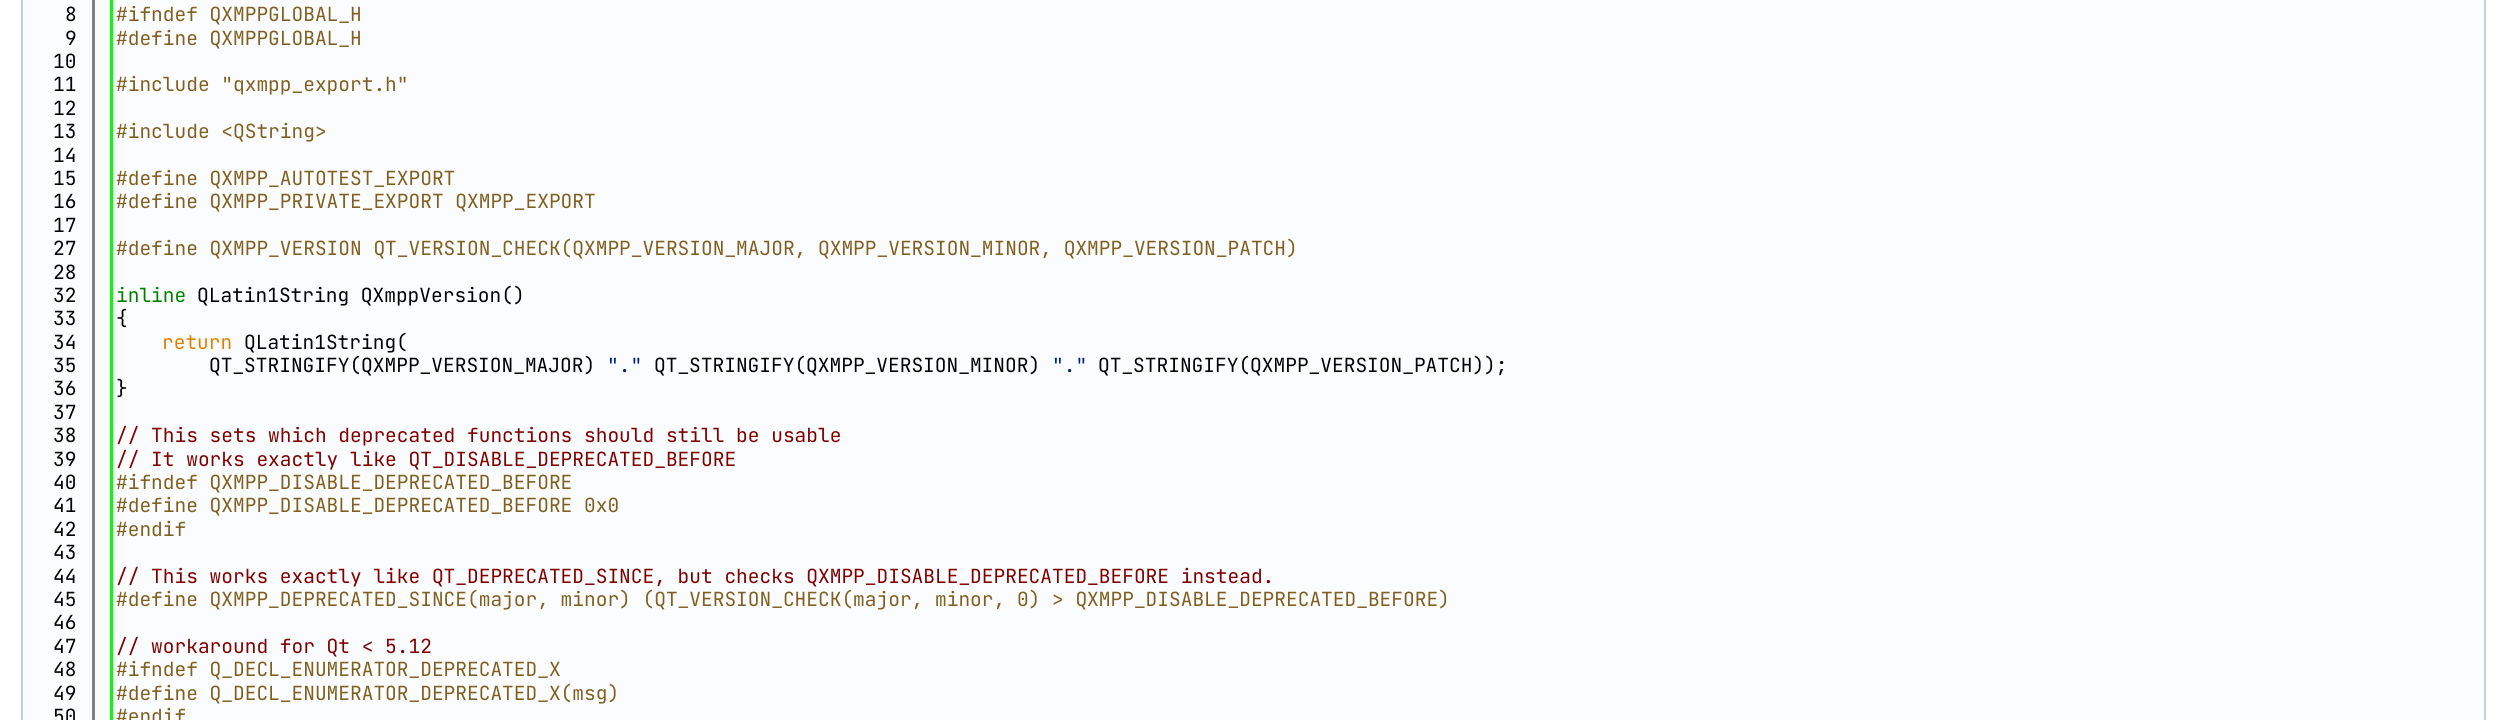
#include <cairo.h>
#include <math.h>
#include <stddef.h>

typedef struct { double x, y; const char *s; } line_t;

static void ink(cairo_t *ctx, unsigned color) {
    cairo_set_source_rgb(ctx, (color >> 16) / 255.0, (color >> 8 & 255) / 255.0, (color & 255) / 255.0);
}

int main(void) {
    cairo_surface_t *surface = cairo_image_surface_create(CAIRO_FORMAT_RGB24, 2509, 720);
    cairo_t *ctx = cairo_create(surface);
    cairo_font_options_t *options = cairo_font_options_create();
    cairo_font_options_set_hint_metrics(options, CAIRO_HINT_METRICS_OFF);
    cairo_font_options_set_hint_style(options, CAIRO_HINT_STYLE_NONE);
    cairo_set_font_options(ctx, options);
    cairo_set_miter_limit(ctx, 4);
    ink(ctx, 0xFFFFFF);
    cairo_paint(ctx);
    ink(ctx, 0xFBFCFD);
    cairo_rectangle(ctx, 22, -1, 2463, 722);
    cairo_fill_preserve(ctx);
    ink(ctx, 0xC4CFE5);
    cairo_stroke(ctx);
    ink(ctx, 0x808080);
    cairo_rectangle(ctx, 92, 0, 3, 720);
    cairo_fill(ctx);
    ink(ctx, 0x00FF00);
    cairo_rectangle(ctx, 110, 0, 3, 720);
    cairo_fill(ctx);
    cairo_select_font_face(ctx, "JetBrains Mono", CAIRO_FONT_SLANT_NORMAL, CAIRO_FONT_WEIGHT_NORMAL);
    cairo_set_font_size(ctx, 19.5);
    ink(ctx, 0x000000);
    cairo_move_to(ctx, 65, 21);
    cairo_show_text(ctx, "8");
    ink(ctx, 0x806020);
    cairo_move_to(ctx, 116, 21);
    cairo_show_text(ctx, "#ifndef QXMPPGLOBAL_H");
    ink(ctx, 0x000000);
    cairo_move_to(ctx, 65, 45);
    cairo_show_text(ctx, "9");
    ink(ctx, 0x806020);
    cairo_move_to(ctx, 116, 45);
    cairo_show_text(ctx, "#define QXMPPGLOBAL_H");
    ink(ctx, 0x000000);
    cairo_move_to(ctx, 53, 68);
    cairo_show_text(ctx, "10");
    cairo_move_to(ctx, 53, 91);
    cairo_show_text(ctx, "11");
    ink(ctx, 0x806020);
    cairo_move_to(ctx, 116, 91);
    cairo_show_text(ctx, "#include \"qxmpp_export.h\"");
    ink(ctx, 0x000000);
    cairo_move_to(ctx, 53, 115);
    cairo_show_text(ctx, "12");
    cairo_move_to(ctx, 53, 138);
    cairo_show_text(ctx, "13");
    ink(ctx, 0x806020);
    cairo_move_to(ctx, 116, 138);
    cairo_show_text(ctx, "#include <QString>");
    ink(ctx, 0x000000);
    cairo_move_to(ctx, 53, 162);
    cairo_show_text(ctx, "14");
    cairo_move_to(ctx, 53, 185);
    cairo_show_text(ctx, "15");
    ink(ctx, 0x806020);
    cairo_move_to(ctx, 116, 185);
    cairo_show_text(ctx, "#define QXMPP_AUTOTEST_EXPORT");
    ink(ctx, 0x000000);
    cairo_move_to(ctx, 53, 208);
    cairo_show_text(ctx, "16");
    ink(ctx, 0x806020);
    cairo_move_to(ctx, 116, 208);
    cairo_show_text(ctx, "#define QXMPP_PRIVATE_EXPORT QXMPP_EXPORT");
    ink(ctx, 0x000000);
    cairo_move_to(ctx, 53, 232);
    cairo_show_text(ctx, "17");
    cairo_move_to(ctx, 53, 255);
    cairo_show_text(ctx, "27");
    ink(ctx, 0x806020);
    cairo_move_to(ctx, 116, 255);
    cairo_show_text(ctx, "#define QXMPP_VERSION QT_VERSION_CHECK(QXMPP_VERSION_MAJOR, QXMPP_VERSION_MINOR, QXMPP_VERSION_PATCH)");
    ink(ctx, 0x000000);
    cairo_move_to(ctx, 53, 279);
    cairo_show_text(ctx, "28");
    cairo_move_to(ctx, 53, 302);
    cairo_show_text(ctx, "32");
    ink(ctx, 0x008000);
    cairo_move_to(ctx, 116, 302);
    cairo_show_text(ctx, "inline");
    ink(ctx, 0x000000);
    {
        static const line_t items[] = {
            {197, 302, "QLatin1String QXmppVersion()"},
            {53, 325, "33"},
            {116, 325, "{"},
            {53, 349, "34"},
        };
        for (size_t i = 0; i < sizeof items / sizeof *items; i++) {
            cairo_move_to(ctx, items[i].x, items[i].y);
            cairo_show_text(ctx, items[i].s);
        }
    }
    ink(ctx, 0xE08000);
    cairo_move_to(ctx, 162, 349);
    cairo_show_text(ctx, "return");
    ink(ctx, 0x000000);
    {
        static const line_t items[] = {
            {244, 349, "QLatin1String("},
            {53, 372, "35"},
            {209, 372, "QT_STRINGIFY(QXMPP_VERSION_MAJOR)"},
        };
        for (size_t i = 0; i < sizeof items / sizeof *items; i++) {
            cairo_move_to(ctx, items[i].x, items[i].y);
            cairo_show_text(ctx, items[i].s);
        }
    }
    ink(ctx, 0x002080);
    cairo_move_to(ctx, 607, 372);
    cairo_show_text(ctx, "\".\"");
    ink(ctx, 0x000000);
    cairo_move_to(ctx, 654, 372);
    cairo_show_text(ctx, "QT_STRINGIFY(QXMPP_VERSION_MINOR)");
    ink(ctx, 0x002080);
    cairo_move_to(ctx, 1052, 372);
    cairo_show_text(ctx, "\".\"");
    ink(ctx, 0x000000);
    {
        static const line_t items[] = {
            {1098, 372, "QT_STRINGIFY(QXMPP_VERSION_PATCH));"},
            {53, 395, "36"},
            {116, 395, "}"},
            {53, 419, "37"},
            {53, 442, "38"},
        };
        for (size_t i = 0; i < sizeof items / sizeof *items; i++) {
            cairo_move_to(ctx, items[i].x, items[i].y);
            cairo_show_text(ctx, items[i].s);
        }
    }
    ink(ctx, 0x800000);
    cairo_move_to(ctx, 116, 442);
    cairo_show_text(ctx, "// This sets which deprecated functions should still be usable");
    ink(ctx, 0x000000);
    cairo_move_to(ctx, 53, 466);
    cairo_show_text(ctx, "39");
    ink(ctx, 0x800000);
    cairo_move_to(ctx, 116, 466);
    cairo_show_text(ctx, "// It works exactly like QT_DISABLE_DEPRECATED_BEFORE");
    ink(ctx, 0x000000);
    cairo_move_to(ctx, 53, 489);
    cairo_show_text(ctx, "40");
    ink(ctx, 0x806020);
    cairo_move_to(ctx, 116, 489);
    cairo_show_text(ctx, "#ifndef QXMPP_DISABLE_DEPRECATED_BEFORE");
    ink(ctx, 0x000000);
    cairo_move_to(ctx, 53, 512);
    cairo_show_text(ctx, "41");
    ink(ctx, 0x806020);
    cairo_move_to(ctx, 116, 512);
    cairo_show_text(ctx, "#define QXMPP_DISABLE_DEPRECATED_BEFORE 0x0");
    ink(ctx, 0x000000);
    cairo_move_to(ctx, 53, 536);
    cairo_show_text(ctx, "42");
    ink(ctx, 0x806020);
    cairo_move_to(ctx, 116, 536);
    cairo_show_text(ctx, "#endif");
    ink(ctx, 0x000000);
    cairo_move_to(ctx, 53, 559);
    cairo_show_text(ctx, "43");
    cairo_move_to(ctx, 53, 583);
    cairo_show_text(ctx, "44");
    ink(ctx, 0x800000);
    cairo_move_to(ctx, 116, 583);
    cairo_show_text(ctx, "// This works exactly like QT_DEPRECATED_SINCE, but checks QXMPP_DISABLE_DEPRECATED_BEFORE instead.");
    ink(ctx, 0x000000);
    cairo_move_to(ctx, 53, 606);
    cairo_show_text(ctx, "45");
    ink(ctx, 0x806020);
    cairo_move_to(ctx, 116, 606);
    cairo_show_text(ctx, "#define QXMPP_DEPRECATED_SINCE(major, minor) (QT_VERSION_CHECK(major, minor, 0) > QXMPP_DISABLE_DEPRECATED_BEFORE)");
    ink(ctx, 0x000000);
    cairo_move_to(ctx, 53, 629);
    cairo_show_text(ctx, "46");
    cairo_move_to(ctx, 53, 653);
    cairo_show_text(ctx, "47");
    ink(ctx, 0x800000);
    cairo_move_to(ctx, 116, 653);
    cairo_show_text(ctx, "// workaround for Qt < 5.12");
    ink(ctx, 0x000000);
    cairo_move_to(ctx, 53, 676);
    cairo_show_text(ctx, "48");
    ink(ctx, 0x806020);
    cairo_move_to(ctx, 116, 676);
    cairo_show_text(ctx, "#ifndef Q_DECL_ENUMERATOR_DEPRECATED_X");
    ink(ctx, 0x000000);
    cairo_move_to(ctx, 53, 700);
    cairo_show_text(ctx, "49");
    ink(ctx, 0x806020);
    cairo_move_to(ctx, 116, 700);
    cairo_show_text(ctx, "#define Q_DECL_ENUMERATOR_DEPRECATED_X(msg)");
    ink(ctx, 0x000000);
    cairo_move_to(ctx, 53, 723);
    cairo_show_text(ctx, "50");
    ink(ctx, 0x806020);
    cairo_move_to(ctx, 116, 723);
    cairo_show_text(ctx, "#endif");
    cairo_surface_write_to_png(surface, "image.png");
    cairo_font_options_destroy(options);
    cairo_destroy(ctx);
    cairo_surface_destroy(surface);
    return 0;
}
